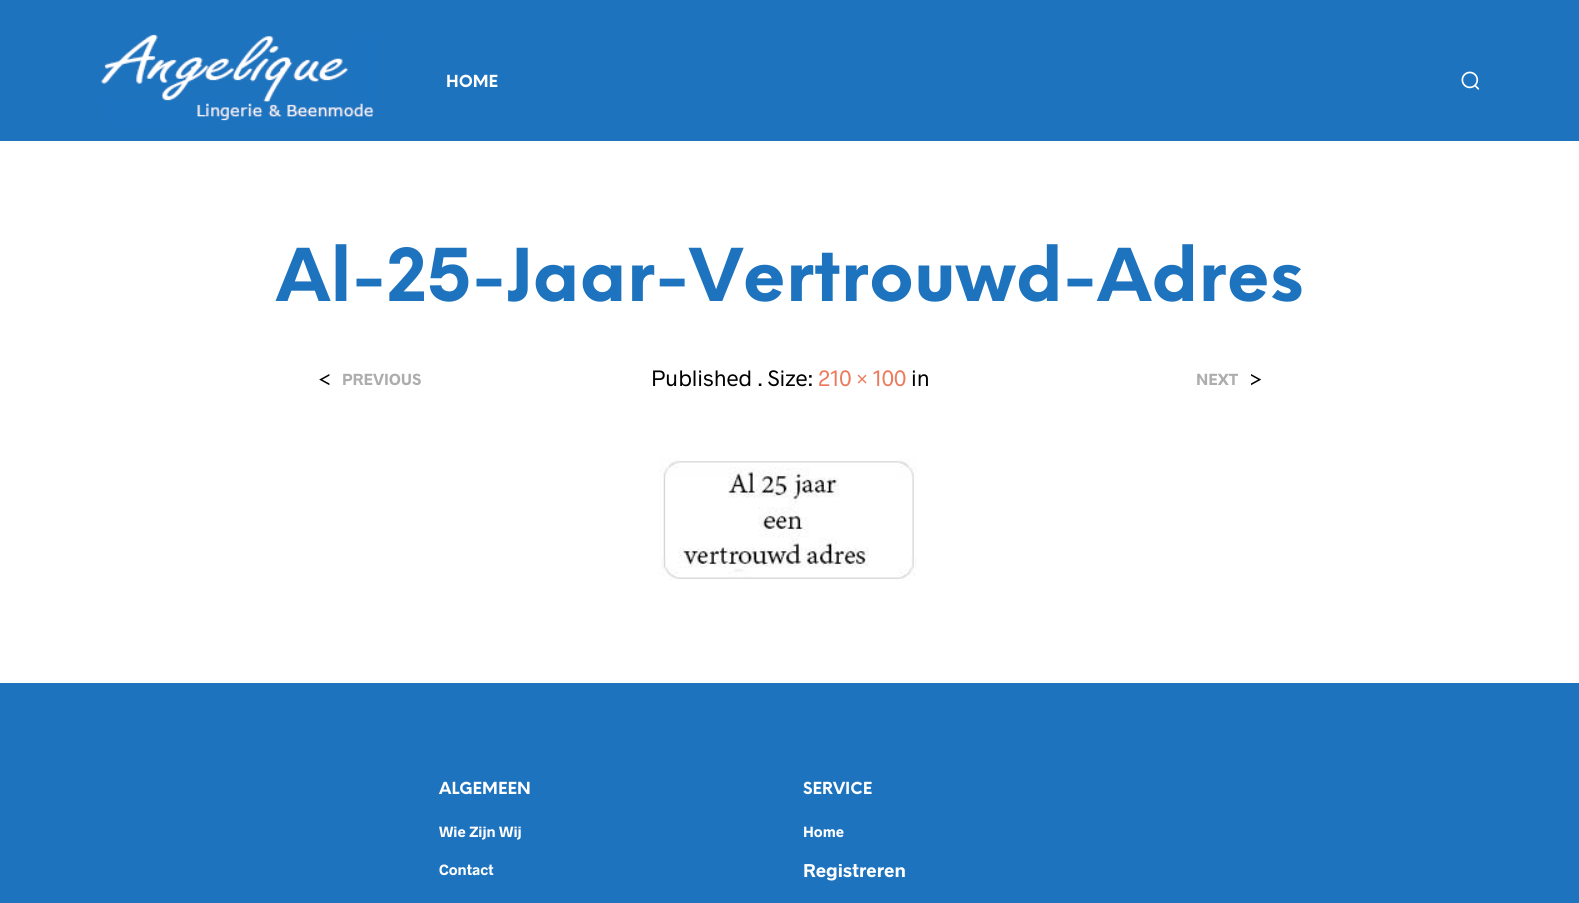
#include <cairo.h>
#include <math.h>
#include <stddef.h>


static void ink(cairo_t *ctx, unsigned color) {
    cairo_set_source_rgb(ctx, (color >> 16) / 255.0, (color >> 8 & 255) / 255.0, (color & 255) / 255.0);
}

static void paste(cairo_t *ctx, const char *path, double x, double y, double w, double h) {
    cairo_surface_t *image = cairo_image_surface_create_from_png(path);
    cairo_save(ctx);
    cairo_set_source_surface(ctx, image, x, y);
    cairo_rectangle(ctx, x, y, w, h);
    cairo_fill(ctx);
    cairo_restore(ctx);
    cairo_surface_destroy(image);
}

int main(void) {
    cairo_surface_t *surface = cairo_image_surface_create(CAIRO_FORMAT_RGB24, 1579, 903);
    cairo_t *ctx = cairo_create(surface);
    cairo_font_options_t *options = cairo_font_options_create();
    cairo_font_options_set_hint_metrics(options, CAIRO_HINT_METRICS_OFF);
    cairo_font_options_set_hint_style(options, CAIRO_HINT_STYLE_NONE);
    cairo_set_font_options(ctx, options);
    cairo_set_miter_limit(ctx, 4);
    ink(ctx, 0xFFFFFF);
    cairo_paint(ctx);
    ink(ctx, 0x1E73BE);
    cairo_rectangle(ctx, 0, 0, 1579, 141);
    cairo_fill(ctx);
    paste(ctx, "media/1.png", 101, 34, 273, 87);
    cairo_select_font_face(ctx, "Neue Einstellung", CAIRO_FONT_SLANT_NORMAL, CAIRO_FONT_WEIGHT_BOLD);
    cairo_set_font_size(ctx, 16.25);
    ink(ctx, 0xFFFFFF);
    cairo_move_to(ctx, 446, 87);
    cairo_show_text(ctx, "HOME");
    paste(ctx, "media/2.png", 1461, 71, 19, 19);
    cairo_set_font_size(ctx, 71);
    ink(ctx, 0x1E73BE);
    cairo_move_to(ctx, 276, 301);
    cairo_show_text(ctx, "Al-25-Jaar-Vertrouwd-Adres");
    cairo_select_font_face(ctx, "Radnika", CAIRO_FONT_SLANT_NORMAL, CAIRO_FONT_WEIGHT_NORMAL);
    cairo_set_font_size(ctx, 22.5);
    ink(ctx, 0x000000);
    cairo_move_to(ctx, 651, 386);
    cairo_show_text(ctx, "Published . Size:");
    ink(ctx, 0xEC7A5C);
    cairo_move_to(ctx, 818, 386);
    cairo_show_text(ctx, "210 × 100");
    ink(ctx, 0x000000);
    cairo_move_to(ctx, 911, 386);
    cairo_show_text(ctx, "in");
    cairo_move_to(ctx, 318, 387);
    cairo_show_text(ctx, "<");
    cairo_select_font_face(ctx, "Radnika", CAIRO_FONT_SLANT_NORMAL, CAIRO_FONT_WEIGHT_BOLD);
    cairo_set_font_size(ctx, 16.25);
    ink(ctx, 0xADADAD);
    cairo_move_to(ctx, 342, 385);
    cairo_show_text(ctx, "PREVIOUS");
    cairo_move_to(ctx, 1196, 385);
    cairo_show_text(ctx, "NEXT");
    cairo_select_font_face(ctx, "Radnika", CAIRO_FONT_SLANT_NORMAL, CAIRO_FONT_WEIGHT_NORMAL);
    cairo_set_font_size(ctx, 22.5);
    ink(ctx, 0x000000);
    cairo_move_to(ctx, 1249, 387);
    cairo_show_text(ctx, ">");
    paste(ctx, "media/3.png", 659, 458, 258, 122);
    ink(ctx, 0x1E73BE);
    cairo_rectangle(ctx, 0, 683, 1579, 220);
    cairo_fill(ctx);
    cairo_select_font_face(ctx, "Neue Einstellung", CAIRO_FONT_SLANT_NORMAL, CAIRO_FONT_WEIGHT_BOLD);
    cairo_set_font_size(ctx, 16.25);
    ink(ctx, 0xFFFFFF);
    cairo_move_to(ctx, 439, 794);
    cairo_show_text(ctx, "ALGEMEEN");
    cairo_select_font_face(ctx, "Radnika", CAIRO_FONT_SLANT_NORMAL, CAIRO_FONT_WEIGHT_BOLD);
    cairo_set_font_size(ctx, 15);
    cairo_move_to(ctx, 439, 837);
    cairo_show_text(ctx, "Wie Zijn Wij");
    cairo_move_to(ctx, 439, 875);
    cairo_show_text(ctx, "Contact");
    cairo_select_font_face(ctx, "Neue Einstellung", CAIRO_FONT_SLANT_NORMAL, CAIRO_FONT_WEIGHT_BOLD);
    cairo_set_font_size(ctx, 16.25);
    cairo_move_to(ctx, 803, 794);
    cairo_show_text(ctx, "SERVICE");
    cairo_select_font_face(ctx, "Radnika", CAIRO_FONT_SLANT_NORMAL, CAIRO_FONT_WEIGHT_BOLD);
    cairo_set_font_size(ctx, 15);
    cairo_move_to(ctx, 803, 837);
    cairo_show_text(ctx, "Home");
    cairo_set_font_size(ctx, 18.75);
    cairo_move_to(ctx, 803, 877);
    cairo_show_text(ctx, "Registreren");
    cairo_surface_write_to_png(surface, "image.png");
    cairo_font_options_destroy(options);
    cairo_destroy(ctx);
    cairo_surface_destroy(surface);
    return 0;
}
